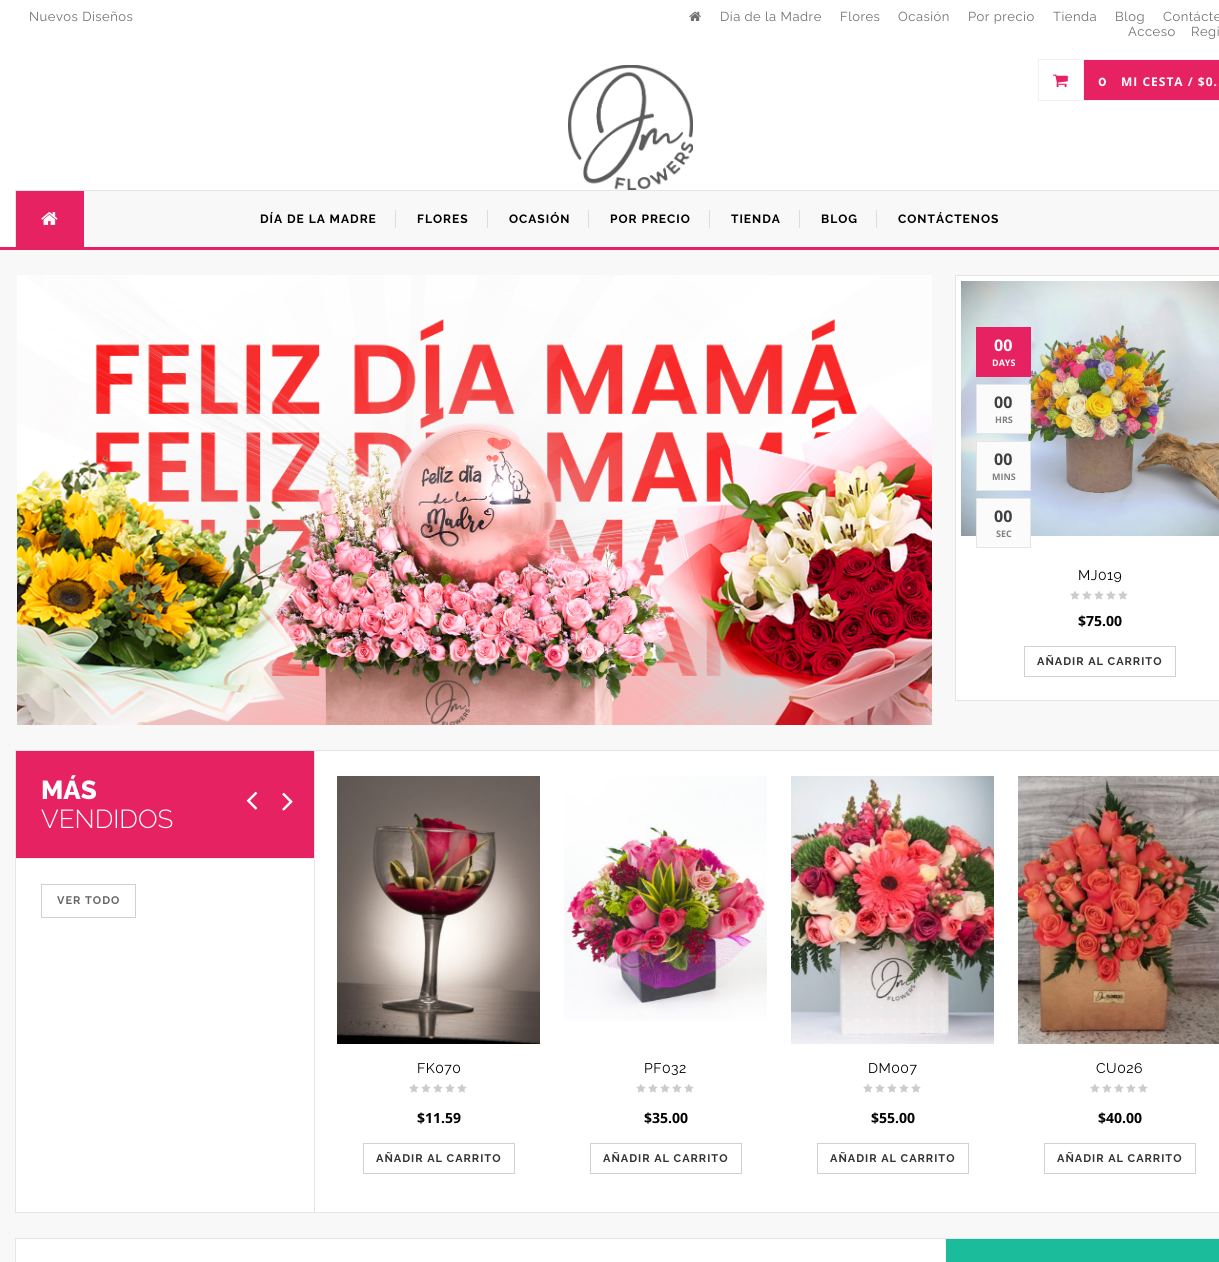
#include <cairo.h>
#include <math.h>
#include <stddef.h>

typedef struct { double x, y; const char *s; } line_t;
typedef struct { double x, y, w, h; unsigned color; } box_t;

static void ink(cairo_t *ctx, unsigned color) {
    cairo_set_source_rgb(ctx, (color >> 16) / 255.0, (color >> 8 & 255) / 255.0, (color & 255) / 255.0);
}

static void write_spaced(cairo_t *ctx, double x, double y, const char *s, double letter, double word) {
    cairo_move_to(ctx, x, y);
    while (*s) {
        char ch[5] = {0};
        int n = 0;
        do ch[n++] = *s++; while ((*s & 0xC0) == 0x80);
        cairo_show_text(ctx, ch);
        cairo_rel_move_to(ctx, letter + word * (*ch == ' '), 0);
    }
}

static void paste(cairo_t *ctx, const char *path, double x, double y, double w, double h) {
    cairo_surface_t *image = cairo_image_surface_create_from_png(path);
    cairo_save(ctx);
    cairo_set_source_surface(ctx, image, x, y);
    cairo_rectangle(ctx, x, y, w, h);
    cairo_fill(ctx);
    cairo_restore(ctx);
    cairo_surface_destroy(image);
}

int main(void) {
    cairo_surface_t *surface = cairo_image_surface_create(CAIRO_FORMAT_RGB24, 1219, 1262);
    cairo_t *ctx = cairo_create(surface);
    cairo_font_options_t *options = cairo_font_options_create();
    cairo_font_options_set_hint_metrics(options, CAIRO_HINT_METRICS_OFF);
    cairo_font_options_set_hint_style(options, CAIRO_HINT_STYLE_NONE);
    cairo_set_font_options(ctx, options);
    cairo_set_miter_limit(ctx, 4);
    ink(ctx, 0xF8F8F8);
    cairo_paint(ctx);
    ink(ctx, 0xFFFFFF);
    cairo_rectangle(ctx, 0, 0, 1219, 190);
    cairo_fill(ctx);
    cairo_select_font_face(ctx, "Raleway", CAIRO_FONT_SLANT_NORMAL, CAIRO_FONT_WEIGHT_NORMAL);
    cairo_set_font_size(ctx, 13);
    ink(ctx, 0x717171);
    write_spaced(ctx, 29, 21, "Nuevos Diseños", 0.5, 0);
    paste(ctx, "media/1.png", 689, 11, 12, 10);
    {
        static const line_t items[] = {
            {720, 21, "Día de la Madre"},
            {840, 21, "Flores"},
            {898, 21, "Ocasión"},
            {968, 21, "Por precio"},
            {1053, 21, "Tienda"},
            {1115, 21, "Blog"},
            {1163, 21, "Contácte"},
            {1128, 36, "Acceso"},
            {1191, 36, "Regi"},
        };
        for (size_t i = 0; i < sizeof items / sizeof *items; i++) {
            write_spaced(ctx, items[i].x, items[i].y, items[i].s, 0.5, 0);
        }
    }
    paste(ctx, "media/2.png", 568, 65, 125, 125);
    ink(ctx, 0xE62263);
    cairo_rectangle(ctx, 1084, 60, 135, 40);
    cairo_fill(ctx);
    cairo_rectangle(ctx, 1038.5, 59.5, 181, 41);
    ink(ctx, 0xF1F1F1);
    cairo_set_line_width(ctx, 1);
    cairo_stroke(ctx);
    cairo_rectangle(ctx, 1083, 60, 1, 40);
    cairo_fill(ctx);
    paste(ctx, "media/3.png", 1053, 74, 15, 14);
    cairo_select_font_face(ctx, "Raleway", CAIRO_FONT_SLANT_NORMAL, CAIRO_FONT_WEIGHT_BOLD);
    cairo_set_font_size(ctx, 14);
    ink(ctx, 0xFFFFFF);
    write_spaced(ctx, 1098, 86, "0", 1, 0);
    cairo_select_font_face(ctx, "Open Sans", CAIRO_FONT_SLANT_NORMAL, CAIRO_FONT_WEIGHT_BOLD);
    cairo_set_font_size(ctx, 12);
    write_spaced(ctx, 1121, 86, "MI CESTA / $0.", 1, 0);
    {
        static const box_t items[] = {
            {0, 190, 15, 57, 0xFFFFFF},
            {0, 247, 1219, 3, 0xE62263},
            {15, 190, 1204, 1, 0xE5E5E5},
            {15, 190, 1, 57, 0xE5E5E5},
            {16, 191, 68, 56, 0xE62263},
        };
        for (size_t i = 0; i < sizeof items / sizeof *items; i++) {
            ink(ctx, items[i].color);
            cairo_rectangle(ctx, items[i].x, items[i].y, items[i].w, items[i].h);
            cairo_fill(ctx);
        }
    }
    paste(ctx, "media/4.png", 41, 212, 17, 13);
    ink(ctx, 0xDDDDDD);
    cairo_rectangle(ctx, 395, 210, 1, 18);
    cairo_fill(ctx);
    cairo_select_font_face(ctx, "Raleway", CAIRO_FONT_SLANT_NORMAL, CAIRO_FONT_WEIGHT_BOLD);
    ink(ctx, 0x000000);
    write_spaced(ctx, 260, 223, "DÍA DE LA MADRE", 1, 0);
    ink(ctx, 0xDDDDDD);
    cairo_rectangle(ctx, 487, 210, 1, 18);
    cairo_fill(ctx);
    ink(ctx, 0x000000);
    write_spaced(ctx, 417, 223, "FLORES", 1, 0);
    ink(ctx, 0xDDDDDD);
    cairo_rectangle(ctx, 588, 210, 1, 18);
    cairo_fill(ctx);
    ink(ctx, 0x000000);
    write_spaced(ctx, 509, 223, "OCASIÓN", 1, 0);
    ink(ctx, 0xDDDDDD);
    cairo_rectangle(ctx, 709, 210, 1, 18);
    cairo_fill(ctx);
    ink(ctx, 0x000000);
    write_spaced(ctx, 610, 223, "POR PRECIO", 1, 0);
    ink(ctx, 0xDDDDDD);
    cairo_rectangle(ctx, 799, 210, 1, 18);
    cairo_fill(ctx);
    ink(ctx, 0x000000);
    write_spaced(ctx, 731, 223, "TIENDA", 1, 0);
    ink(ctx, 0xDDDDDD);
    cairo_rectangle(ctx, 876, 210, 1, 18);
    cairo_fill(ctx);
    ink(ctx, 0x000000);
    write_spaced(ctx, 821, 223, "BLOG", 1, 0);
    write_spaced(ctx, 898, 223, "CONTÁCTENOS", 1, 0);
    paste(ctx, "media/5.png", 17, 275, 915, 450);
    ink(ctx, 0xFFFFFF);
    cairo_rectangle(ctx, 955.5, 275.5, 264, 425);
    cairo_fill_preserve(ctx);
    ink(ctx, 0xE5E5E5);
    cairo_stroke(ctx);
    paste(ctx, "media/6.png", 961, 281, 258, 255);
    ink(ctx, 0xE62263);
    cairo_rectangle(ctx, 976, 327, 55, 50);
    cairo_fill(ctx);
    cairo_select_font_face(ctx, "Open Sans", CAIRO_FONT_SLANT_NORMAL, CAIRO_FONT_WEIGHT_BOLD);
    cairo_set_font_size(ctx, 16);
    ink(ctx, 0xFFFFFF);
    cairo_move_to(ctx, 994, 351);
    cairo_show_text(ctx, "00");
    cairo_set_font_size(ctx, 9);
    cairo_move_to(ctx, 992, 366);
    cairo_show_text(ctx, "DAYS");
    ink(ctx, 0xFBFBFB);
    cairo_rectangle(ctx, 976.5, 384.5, 54, 49);
    cairo_fill_preserve(ctx);
    ink(ctx, 0xE5E5E5);
    cairo_stroke(ctx);
    cairo_set_font_size(ctx, 16);
    ink(ctx, 0x3F3F3F);
    cairo_move_to(ctx, 994, 408);
    cairo_show_text(ctx, "00");
    cairo_set_font_size(ctx, 9);
    ink(ctx, 0x808080);
    cairo_move_to(ctx, 995, 423);
    cairo_show_text(ctx, "HRS");
    ink(ctx, 0xFBFBFB);
    cairo_rectangle(ctx, 976.5, 441.5, 54, 49);
    cairo_fill_preserve(ctx);
    ink(ctx, 0xE5E5E5);
    cairo_stroke(ctx);
    cairo_set_font_size(ctx, 16);
    ink(ctx, 0x3F3F3F);
    cairo_move_to(ctx, 994, 465);
    cairo_show_text(ctx, "00");
    cairo_set_font_size(ctx, 9);
    ink(ctx, 0x808080);
    cairo_move_to(ctx, 992, 480);
    cairo_show_text(ctx, "MINS");
    ink(ctx, 0xFBFBFB);
    cairo_rectangle(ctx, 976.5, 498.5, 54, 49);
    cairo_fill_preserve(ctx);
    ink(ctx, 0xE5E5E5);
    cairo_stroke(ctx);
    cairo_set_font_size(ctx, 16);
    ink(ctx, 0x3F3F3F);
    cairo_move_to(ctx, 994, 522);
    cairo_show_text(ctx, "00");
    cairo_set_font_size(ctx, 9);
    ink(ctx, 0x808080);
    cairo_move_to(ctx, 996, 537);
    cairo_show_text(ctx, "SEC");
    cairo_select_font_face(ctx, "Raleway", CAIRO_FONT_SLANT_NORMAL, CAIRO_FONT_WEIGHT_NORMAL);
    cairo_set_font_size(ctx, 14);
    ink(ctx, 0x000000);
    write_spaced(ctx, 1078, 580, "MJ019", 0.5, 0);
    paste(ctx, "media/7.png", 1070, 591, 58, 9);
    cairo_select_font_face(ctx, "Open Sans", CAIRO_FONT_SLANT_NORMAL, CAIRO_FONT_WEIGHT_BOLD);
    cairo_move_to(ctx, 1078, 626);
    cairo_show_text(ctx, "$75.00");
    cairo_rectangle(ctx, 1024.5, 646.5, 151, 30);
    ink(ctx, 0xD1D1D1);
    cairo_stroke(ctx);
    cairo_select_font_face(ctx, "Raleway", CAIRO_FONT_SLANT_NORMAL, CAIRO_FONT_WEIGHT_BOLD);
    cairo_set_font_size(ctx, 11);
    ink(ctx, 0x333333);
    write_spaced(ctx, 1037, 665, "AÑADIR AL CARRITO", 1, 0);
    ink(ctx, 0xFFFFFF);
    cairo_rectangle(ctx, 15.5, 750.5, 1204, 462);
    cairo_fill_preserve(ctx);
    ink(ctx, 0xE5E5E5);
    cairo_stroke(ctx);
    ink(ctx, 0xE62263);
    cairo_rectangle(ctx, 16, 751, 298, 107);
    cairo_fill(ctx);
    ink(ctx, 0xF1F1F1);
    cairo_rectangle(ctx, 16, 858, 298, 1);
    cairo_fill(ctx);
    cairo_select_font_face(ctx, "Raleway ExtraBold", CAIRO_FONT_SLANT_NORMAL, CAIRO_FONT_WEIGHT_NORMAL);
    cairo_set_font_size(ctx, 26);
    ink(ctx, 0xFFFFFF);
    cairo_move_to(ctx, 41, 799);
    cairo_show_text(ctx, "MÁS");
    cairo_select_font_face(ctx, "Raleway Light", CAIRO_FONT_SLANT_NORMAL, CAIRO_FONT_WEIGHT_NORMAL);
    cairo_move_to(ctx, 41, 828);
    cairo_show_text(ctx, "VENDIDOS");
    cairo_rectangle(ctx, 41.5, 884.5, 94, 33);
    ink(ctx, 0xD1D1D1);
    cairo_stroke(ctx);
    cairo_select_font_face(ctx, "Raleway", CAIRO_FONT_SLANT_NORMAL, CAIRO_FONT_WEIGHT_BOLD);
    cairo_set_font_size(ctx, 11);
    ink(ctx, 0x666666);
    write_spaced(ctx, 57, 904, "VER TODO", 1, 0);
    ink(ctx, 0xE5E5E5);
    cairo_rectangle(ctx, 314, 751, 1, 461);
    cairo_fill(ctx);
    paste(ctx, "media/8.png", 246, 791, 12, 19);
    paste(ctx, "media/9.png", 282, 792, 11, 19);
    paste(ctx, "media/10.png", 337, 776, 203, 268);
    cairo_select_font_face(ctx, "Raleway", CAIRO_FONT_SLANT_NORMAL, CAIRO_FONT_WEIGHT_NORMAL);
    cairo_set_font_size(ctx, 14);
    ink(ctx, 0x000000);
    write_spaced(ctx, 417, 1073, "FK070", 0.5, 0);
    paste(ctx, "media/7.png", 409, 1084, 58, 9);
    cairo_select_font_face(ctx, "Open Sans", CAIRO_FONT_SLANT_NORMAL, CAIRO_FONT_WEIGHT_BOLD);
    cairo_move_to(ctx, 417, 1123);
    cairo_show_text(ctx, "$11.59");
    cairo_rectangle(ctx, 363.5, 1143.5, 151, 30);
    ink(ctx, 0xD1D1D1);
    cairo_stroke(ctx);
    cairo_select_font_face(ctx, "Raleway", CAIRO_FONT_SLANT_NORMAL, CAIRO_FONT_WEIGHT_BOLD);
    cairo_set_font_size(ctx, 11);
    ink(ctx, 0x333333);
    write_spaced(ctx, 376, 1162, "AÑADIR AL CARRITO", 1, 0);
    paste(ctx, "media/11.png", 564, 776, 203, 245);
    cairo_select_font_face(ctx, "Raleway", CAIRO_FONT_SLANT_NORMAL, CAIRO_FONT_WEIGHT_NORMAL);
    cairo_set_font_size(ctx, 14);
    ink(ctx, 0x000000);
    write_spaced(ctx, 644, 1073, "PF032", 0.5, 0);
    paste(ctx, "media/7.png", 636, 1084, 58, 9);
    cairo_select_font_face(ctx, "Open Sans", CAIRO_FONT_SLANT_NORMAL, CAIRO_FONT_WEIGHT_BOLD);
    cairo_move_to(ctx, 644, 1123);
    cairo_show_text(ctx, "$35.00");
    cairo_rectangle(ctx, 590.5, 1143.5, 151, 30);
    ink(ctx, 0xD1D1D1);
    cairo_stroke(ctx);
    cairo_select_font_face(ctx, "Raleway", CAIRO_FONT_SLANT_NORMAL, CAIRO_FONT_WEIGHT_BOLD);
    cairo_set_font_size(ctx, 11);
    ink(ctx, 0x333333);
    write_spaced(ctx, 603, 1162, "AÑADIR AL CARRITO", 1, 0);
    paste(ctx, "media/12.png", 791, 776, 203, 268);
    cairo_select_font_face(ctx, "Raleway", CAIRO_FONT_SLANT_NORMAL, CAIRO_FONT_WEIGHT_NORMAL);
    cairo_set_font_size(ctx, 14);
    ink(ctx, 0x000000);
    write_spaced(ctx, 868, 1073, "DM007", 0.5, 0);
    paste(ctx, "media/7.png", 863, 1084, 58, 9);
    cairo_select_font_face(ctx, "Open Sans", CAIRO_FONT_SLANT_NORMAL, CAIRO_FONT_WEIGHT_BOLD);
    cairo_move_to(ctx, 871, 1123);
    cairo_show_text(ctx, "$55.00");
    cairo_rectangle(ctx, 817.5, 1143.5, 151, 30);
    ink(ctx, 0xD1D1D1);
    cairo_stroke(ctx);
    cairo_select_font_face(ctx, "Raleway", CAIRO_FONT_SLANT_NORMAL, CAIRO_FONT_WEIGHT_BOLD);
    cairo_set_font_size(ctx, 11);
    ink(ctx, 0x333333);
    write_spaced(ctx, 830, 1162, "AÑADIR AL CARRITO", 1, 0);
    paste(ctx, "media/13.png", 1018, 776, 201, 268);
    cairo_select_font_face(ctx, "Raleway", CAIRO_FONT_SLANT_NORMAL, CAIRO_FONT_WEIGHT_NORMAL);
    cairo_set_font_size(ctx, 14);
    ink(ctx, 0x000000);
    write_spaced(ctx, 1096, 1073, "CU026", 0.5, 0);
    paste(ctx, "media/7.png", 1090, 1084, 58, 9);
    cairo_select_font_face(ctx, "Open Sans", CAIRO_FONT_SLANT_NORMAL, CAIRO_FONT_WEIGHT_BOLD);
    cairo_move_to(ctx, 1098, 1123);
    cairo_show_text(ctx, "$40.00");
    cairo_rectangle(ctx, 1044.5, 1143.5, 151, 30);
    ink(ctx, 0xD1D1D1);
    cairo_stroke(ctx);
    cairo_select_font_face(ctx, "Raleway", CAIRO_FONT_SLANT_NORMAL, CAIRO_FONT_WEIGHT_BOLD);
    cairo_set_font_size(ctx, 11);
    ink(ctx, 0x333333);
    write_spaced(ctx, 1057, 1162, "AÑADIR AL CARRITO", 1, 0);
    ink(ctx, 0xFFFFFF);
    cairo_rectangle(ctx, 16, 1239, 929, 23);
    cairo_fill(ctx);
    cairo_rectangle(ctx, 15.5, 1238.5, 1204, 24);
    ink(ctx, 0xE5E5E5);
    cairo_stroke(ctx);
    ink(ctx, 0xF1F1F1);
    cairo_rectangle(ctx, 945, 1239, 1, 23);
    cairo_fill(ctx);
    ink(ctx, 0x1BBC9B);
    cairo_rectangle(ctx, 946, 1239, 273, 23);
    cairo_fill(ctx);
    cairo_surface_write_to_png(surface, "image.png");
    cairo_font_options_destroy(options);
    cairo_destroy(ctx);
    cairo_surface_destroy(surface);
    return 0;
}
